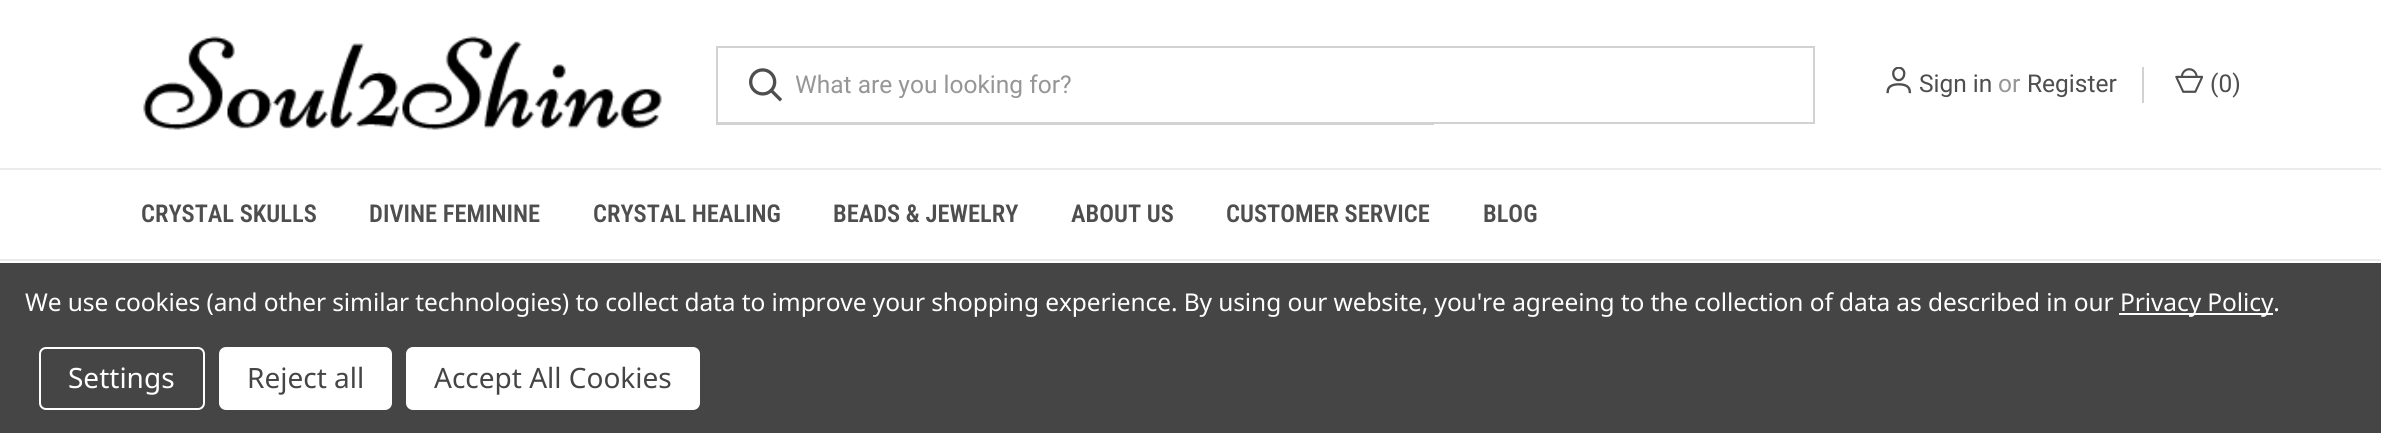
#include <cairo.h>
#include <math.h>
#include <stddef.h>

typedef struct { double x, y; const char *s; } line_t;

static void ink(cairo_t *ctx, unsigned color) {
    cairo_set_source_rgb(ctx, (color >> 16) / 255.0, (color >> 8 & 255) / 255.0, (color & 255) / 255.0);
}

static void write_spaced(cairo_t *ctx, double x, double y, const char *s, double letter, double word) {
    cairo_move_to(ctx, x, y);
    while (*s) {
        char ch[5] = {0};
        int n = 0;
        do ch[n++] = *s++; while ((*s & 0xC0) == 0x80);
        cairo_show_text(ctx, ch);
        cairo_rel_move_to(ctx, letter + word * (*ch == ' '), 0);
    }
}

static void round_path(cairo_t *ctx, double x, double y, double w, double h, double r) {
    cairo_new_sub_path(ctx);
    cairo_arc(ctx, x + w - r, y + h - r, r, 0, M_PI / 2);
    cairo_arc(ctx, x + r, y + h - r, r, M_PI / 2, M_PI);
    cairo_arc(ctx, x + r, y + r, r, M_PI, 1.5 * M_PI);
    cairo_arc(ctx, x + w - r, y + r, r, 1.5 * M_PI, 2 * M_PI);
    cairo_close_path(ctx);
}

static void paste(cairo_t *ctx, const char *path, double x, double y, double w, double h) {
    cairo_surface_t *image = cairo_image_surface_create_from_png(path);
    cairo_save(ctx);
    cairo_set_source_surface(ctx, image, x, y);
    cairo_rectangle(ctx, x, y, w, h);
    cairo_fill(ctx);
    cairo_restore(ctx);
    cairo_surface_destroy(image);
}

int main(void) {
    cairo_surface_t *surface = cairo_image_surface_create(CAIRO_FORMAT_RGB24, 2381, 433);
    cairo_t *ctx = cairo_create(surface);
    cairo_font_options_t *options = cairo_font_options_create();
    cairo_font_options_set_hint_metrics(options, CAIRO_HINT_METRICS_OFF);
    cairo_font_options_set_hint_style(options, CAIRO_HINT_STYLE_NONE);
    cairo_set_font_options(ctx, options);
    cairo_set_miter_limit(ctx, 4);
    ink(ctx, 0xFFFFFF);
    cairo_paint(ctx);
    paste(ctx, "media/1.png", 143, 36, 519, 94);
    cairo_rectangle(ctx, 717, 47, 1097, 76);
    ink(ctx, 0xD2D2D2);
    cairo_stroke(ctx);
    paste(ctx, "media/2.png", 749, 68, 33, 34);
    cairo_save(ctx);
    cairo_rectangle(ctx, 796, 70, 993, 28);
    cairo_clip(ctx);
    cairo_select_font_face(ctx, "Roboto", CAIRO_FONT_SLANT_NORMAL, CAIRO_FONT_WEIGHT_NORMAL);
    cairo_set_font_size(ctx, 24.5);
    ink(ctx, 0x969696);
    cairo_move_to(ctx, 795, 93);
    cairo_show_text(ctx, "What are you looking for?");
    cairo_restore(ctx);
    cairo_rectangle(ctx, 716, 124, 718, 1);
    cairo_fill(ctx);
    paste(ctx, "media/3.png", 1886, 67, 26, 27);
    cairo_select_font_face(ctx, "Roboto", CAIRO_FONT_SLANT_NORMAL, CAIRO_FONT_WEIGHT_NORMAL);
    cairo_set_font_size(ctx, 24.5);
    ink(ctx, 0x4E4E4E);
    cairo_move_to(ctx, 1919, 92);
    cairo_show_text(ctx, "Sign in");
    ink(ctx, 0x969696);
    cairo_move_to(ctx, 1998, 92);
    cairo_show_text(ctx, "or");
    ink(ctx, 0x4E4E4E);
    cairo_move_to(ctx, 2027, 92);
    cairo_show_text(ctx, "Register");
    ink(ctx, 0xD2D2D2);
    cairo_rectangle(ctx, 2142, 67, 2, 36);
    cairo_fill(ctx);
    paste(ctx, "media/4.png", 2175, 68, 28, 25);
    ink(ctx, 0x4E4E4E);
    cairo_move_to(ctx, 2210, 92);
    cairo_show_text(ctx, "(0)");
    ink(ctx, 0xEBEBEB);
    cairo_rectangle(ctx, 0, 168, 2381, 2);
    cairo_fill(ctx);
    cairo_rectangle(ctx, 0, 259, 2381, 2);
    cairo_fill(ctx);
    cairo_select_font_face(ctx, "Roboto Condensed SemiBold", CAIRO_FONT_SLANT_NORMAL, CAIRO_FONT_WEIGHT_NORMAL);
    ink(ctx, 0x4E4E4E);
    {
        static const line_t items[] = {
            {141, 222, "CRYSTAL SKULLS"},
            {369, 222, "DIVINE FEMININE"},
            {593, 222, "CRYSTAL HEALING"},
            {833, 222, "BEADS & JEWELRY"},
            {1071, 222, "ABOUT US"},
            {1226, 222, "CUSTOMER SERVICE"},
            {1483, 222, "BLOG"},
        };
        for (size_t i = 0; i < sizeof items / sizeof *items; i++) {
            cairo_move_to(ctx, items[i].x, items[i].y);
            cairo_show_text(ctx, items[i].s);
        }
    }
    ink(ctx, 0x454545);
    cairo_rectangle(ctx, 0, 263, 2381, 170);
    cairo_fill(ctx);
    cairo_select_font_face(ctx, "Noto Sans", CAIRO_FONT_SLANT_NORMAL, CAIRO_FONT_WEIGHT_NORMAL);
    ink(ctx, 0xFFFFFF);
    write_spaced(ctx, 25, 311, "We use cookies (and other similar technologies) to collect data to improve your shopping experience. By using our website, you're agreeing to the collection of data as described in our", -0.09, 0);
    cairo_rectangle(ctx, 2119, 313, 154, 2);
    cairo_fill(ctx);
    write_spaced(ctx, 2120, 311, "Privacy Policy.", -0.09, 0);
    round_path(ctx, 40, 348, 164, 61, 6);
    cairo_stroke(ctx);
    cairo_set_font_size(ctx, 28);
    cairo_move_to(ctx, 68, 388);
    cairo_show_text(ctx, "Settings");
    round_path(ctx, 219, 347, 173, 63, 7);
    cairo_fill(ctx);
    ink(ctx, 0x454545);
    cairo_move_to(ctx, 247, 388);
    cairo_show_text(ctx, "Reject all");
    ink(ctx, 0xFFFFFF);
    round_path(ctx, 406, 347, 294, 63, 7);
    cairo_fill(ctx);
    ink(ctx, 0x454545);
    cairo_move_to(ctx, 434, 388);
    cairo_show_text(ctx, "Accept All Cookies");
    cairo_surface_write_to_png(surface, "image.png");
    cairo_font_options_destroy(options);
    cairo_destroy(ctx);
    cairo_surface_destroy(surface);
    return 0;
}
